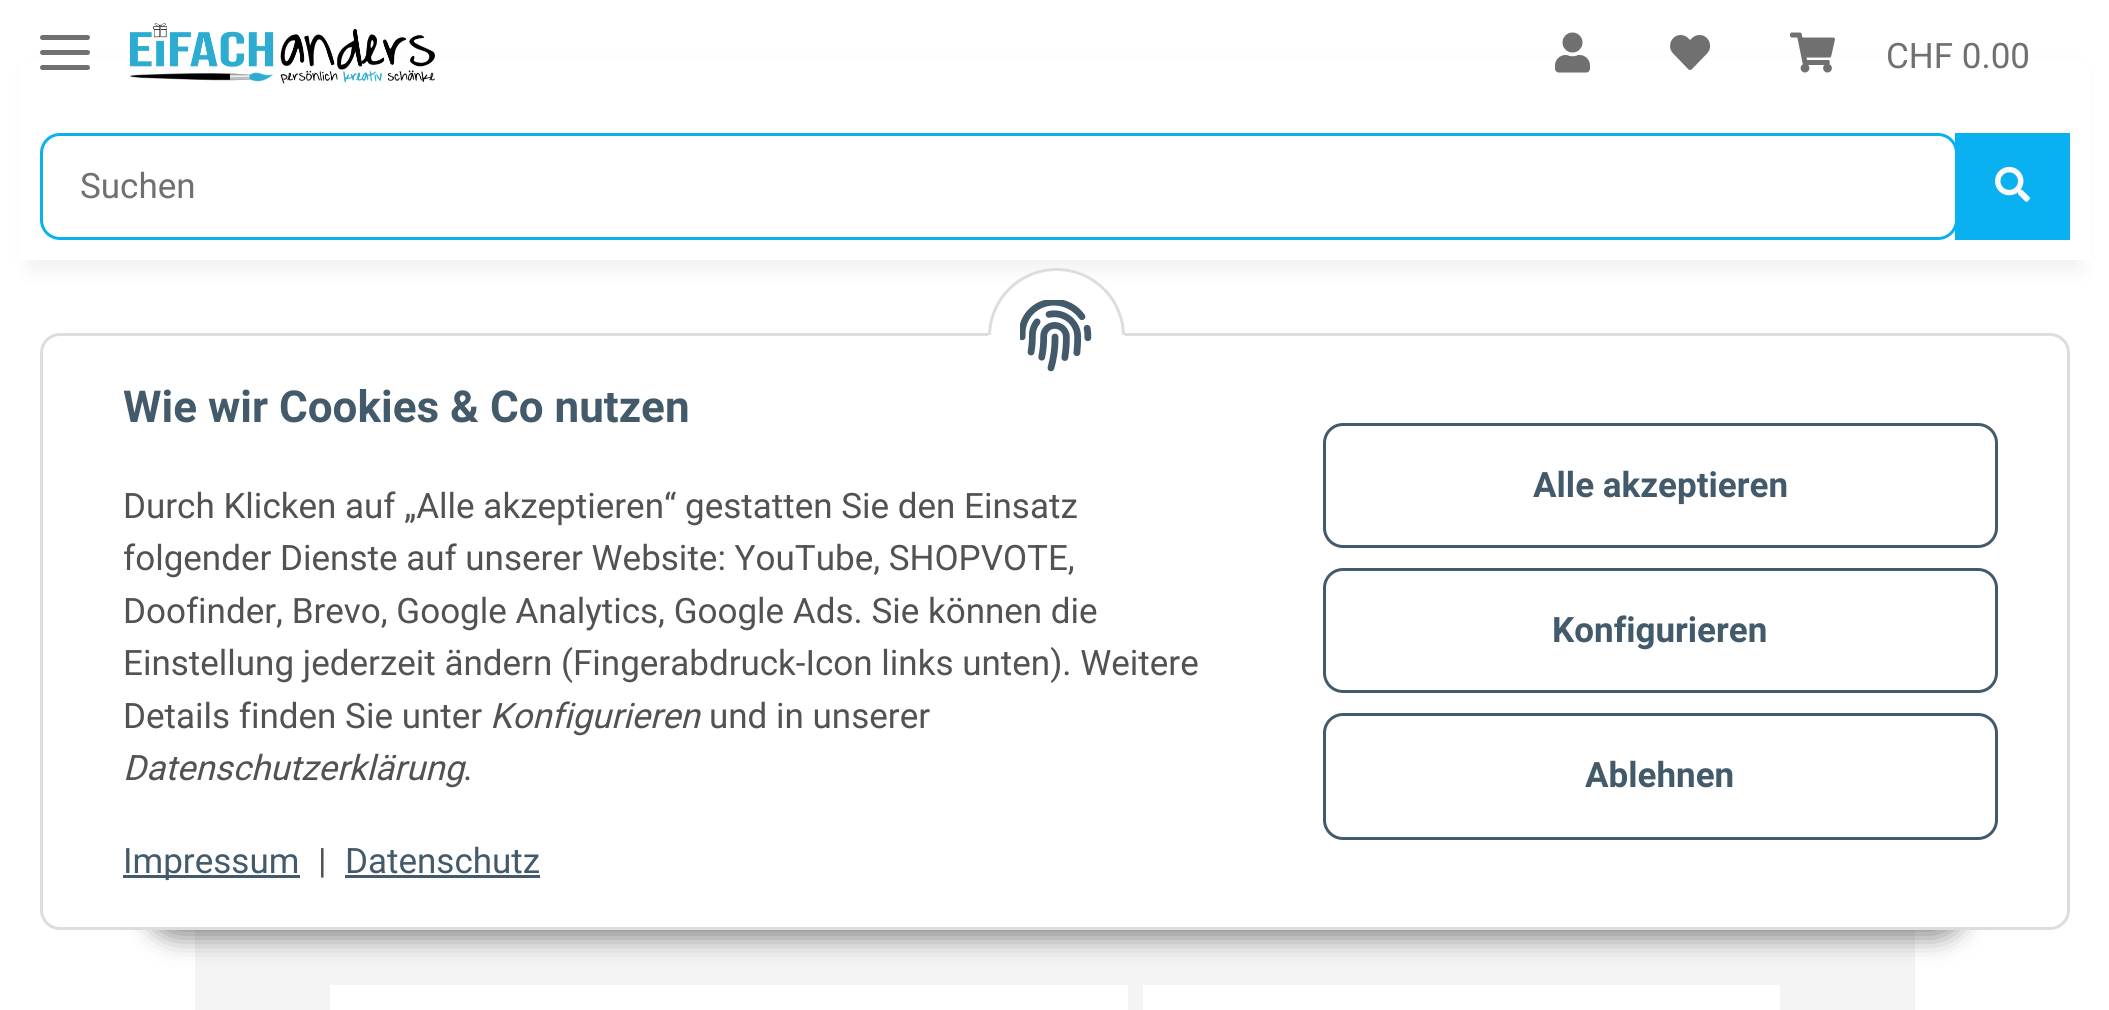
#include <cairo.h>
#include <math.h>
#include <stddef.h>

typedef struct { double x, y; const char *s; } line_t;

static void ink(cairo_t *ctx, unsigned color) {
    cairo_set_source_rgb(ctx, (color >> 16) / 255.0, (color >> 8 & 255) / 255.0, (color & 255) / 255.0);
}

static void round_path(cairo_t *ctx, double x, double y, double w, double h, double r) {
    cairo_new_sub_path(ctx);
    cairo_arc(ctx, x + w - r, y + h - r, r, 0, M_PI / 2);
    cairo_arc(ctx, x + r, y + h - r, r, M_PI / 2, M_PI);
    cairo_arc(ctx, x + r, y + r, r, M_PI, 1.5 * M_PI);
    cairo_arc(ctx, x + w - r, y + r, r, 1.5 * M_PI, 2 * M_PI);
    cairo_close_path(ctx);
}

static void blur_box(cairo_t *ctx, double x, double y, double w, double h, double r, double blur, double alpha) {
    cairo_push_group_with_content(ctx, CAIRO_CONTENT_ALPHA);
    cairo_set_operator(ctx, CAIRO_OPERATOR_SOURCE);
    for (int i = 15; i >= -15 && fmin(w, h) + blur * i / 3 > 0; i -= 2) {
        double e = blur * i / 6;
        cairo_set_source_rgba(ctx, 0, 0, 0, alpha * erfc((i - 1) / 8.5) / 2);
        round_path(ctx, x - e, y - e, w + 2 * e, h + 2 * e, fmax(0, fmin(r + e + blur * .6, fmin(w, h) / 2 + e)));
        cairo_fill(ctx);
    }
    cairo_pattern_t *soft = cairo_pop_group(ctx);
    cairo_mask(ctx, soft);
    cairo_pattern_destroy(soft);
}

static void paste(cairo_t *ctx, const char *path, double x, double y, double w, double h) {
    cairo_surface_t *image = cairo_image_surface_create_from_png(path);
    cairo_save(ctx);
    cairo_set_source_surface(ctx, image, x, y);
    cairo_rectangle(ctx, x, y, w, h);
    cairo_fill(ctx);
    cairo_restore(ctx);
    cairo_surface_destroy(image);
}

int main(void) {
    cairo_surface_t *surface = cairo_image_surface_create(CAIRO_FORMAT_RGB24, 2109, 1010);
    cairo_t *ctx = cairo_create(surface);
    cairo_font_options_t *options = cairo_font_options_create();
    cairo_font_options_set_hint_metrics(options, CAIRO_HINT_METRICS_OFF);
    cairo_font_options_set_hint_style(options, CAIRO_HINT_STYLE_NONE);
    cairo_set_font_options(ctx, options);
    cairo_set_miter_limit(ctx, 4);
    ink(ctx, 0xFFFFFF);
    cairo_paint(ctx);
    ink(ctx, 0x000000);
    blur_box(ctx, 30, 70, 2050, 200, 0, 11, 0.06);
    ink(ctx, 0xFFFFFF);
    cairo_rectangle(ctx, 19, 59, 2072, 201);
    cairo_fill(ctx);
    ink(ctx, 0x707070);
    round_path(ctx, 40, 50, 50, 5, 2.5);
    cairo_fill(ctx);
    round_path(ctx, 40, 35, 50, 5, 2.5);
    cairo_fill(ctx);
    round_path(ctx, 40, 65, 50, 5, 2.5);
    cairo_fill(ctx);
    paste(ctx, "media/1.png", 130, 23, 305, 61);
    paste(ctx, "media/2.png", 1555, 32, 35, 41);
    paste(ctx, "media/3.png", 1670, 35, 41, 35);
    paste(ctx, "media/4.png", 1790, 32, 45, 41);
    cairo_select_font_face(ctx, "Roboto", CAIRO_FONT_SLANT_NORMAL, CAIRO_FONT_WEIGHT_NORMAL);
    cairo_set_font_size(ctx, 35);
    cairo_move_to(ctx, 1886, 68);
    cairo_show_text(ctx, "CHF 0.00");
    round_path(ctx, 41.5, 134.5, 1915, 104, 18.5);
    ink(ctx, 0x0AB1F0);
    cairo_set_line_width(ctx, 3);
    cairo_stroke(ctx);
    ink(ctx, 0x707070);
    cairo_move_to(ctx, 80, 198);
    cairo_show_text(ctx, "Suchen");
    ink(ctx, 0x0AB1F0);
    cairo_rectangle(ctx, 1955, 133, 115, 107);
    cairo_fill(ctx);
    paste(ctx, "media/5.png", 1995, 166, 35, 36);
    ink(ctx, 0xF4F4F4);
    cairo_rectangle(ctx, 195, 930, 1720, 80);
    cairo_fill(ctx);
    ink(ctx, 0x000000);
    blur_box(ctx, 145, 858, 1823, 80, 40, 12.5, 0.45);
    ink(ctx, 0xFFFFFF);
    round_path(ctx, 41.5, 334.5, 2027, 594, 18.5);
    cairo_fill_preserve(ctx);
    ink(ctx, 0xDDDDDD);
    cairo_stroke(ctx);
    ink(ctx, 0xFFFFFF);
    cairo_arc(ctx, 1056.5, 336.5, 67, 0, 2 * M_PI);
    cairo_fill_preserve(ctx);
    ink(ctx, 0xDDDDDD);
    cairo_stroke(ctx);
    ink(ctx, 0xFFFFFF);
    cairo_rectangle(ctx, 988, 335, 137, 70);
    cairo_fill(ctx);
    paste(ctx, "media/6.png", 1020, 300, 72, 72);
    cairo_select_font_face(ctx, "Roboto", CAIRO_FONT_SLANT_NORMAL, CAIRO_FONT_WEIGHT_BOLD);
    cairo_set_font_size(ctx, 44);
    ink(ctx, 0x435A6B);
    cairo_move_to(ctx, 123, 422);
    cairo_show_text(ctx, "Wie wir Cookies & Co nutzen");
    cairo_select_font_face(ctx, "Roboto", CAIRO_FONT_SLANT_NORMAL, CAIRO_FONT_WEIGHT_NORMAL);
    cairo_set_font_size(ctx, 35);
    ink(ctx, 0x525252);
    {
        static const line_t items[] = {
            {123, 518, "Durch Klicken auf „Alle akzeptieren“ gestatten Sie den Einsatz"},
            {123, 570, "folgender Dienste auf unserer Website: YouTube, SHOPVOTE,"},
            {123, 623, "Doofinder, Brevo, Google Analytics, Google Ads. Sie können die"},
            {123, 675, "Einstellung jederzeit ändern (Fingerabdruck-Icon links unten). Weitere"},
            {123, 728, "Details finden Sie unter"},
        };
        for (size_t i = 0; i < sizeof items / sizeof *items; i++) {
            cairo_move_to(ctx, items[i].x, items[i].y);
            cairo_show_text(ctx, items[i].s);
        }
    }
    cairo_select_font_face(ctx, "Roboto", CAIRO_FONT_SLANT_ITALIC, CAIRO_FONT_WEIGHT_NORMAL);
    cairo_move_to(ctx, 490, 728);
    cairo_show_text(ctx, "Konfigurieren");
    cairo_select_font_face(ctx, "Roboto", CAIRO_FONT_SLANT_NORMAL, CAIRO_FONT_WEIGHT_NORMAL);
    cairo_move_to(ctx, 709, 728);
    cairo_show_text(ctx, "und in unserer");
    cairo_select_font_face(ctx, "Roboto", CAIRO_FONT_SLANT_ITALIC, CAIRO_FONT_WEIGHT_NORMAL);
    cairo_move_to(ctx, 123, 780);
    cairo_show_text(ctx, "Datenschutzerklärung");
    cairo_select_font_face(ctx, "Roboto", CAIRO_FONT_SLANT_NORMAL, CAIRO_FONT_WEIGHT_NORMAL);
    cairo_move_to(ctx, 463, 780);
    cairo_show_text(ctx, ".");
    ink(ctx, 0x435A6B);
    cairo_rectangle(ctx, 123, 875, 177, 3);
    cairo_fill(ctx);
    cairo_move_to(ctx, 123, 873);
    cairo_show_text(ctx, "Impressum");
    ink(ctx, 0x525252);
    cairo_move_to(ctx, 318, 873);
    cairo_show_text(ctx, "|");
    ink(ctx, 0x435A6B);
    cairo_move_to(ctx, 345, 873);
    cairo_show_text(ctx, "Datenschutz");
    cairo_rectangle(ctx, 345, 875, 195, 3);
    cairo_fill(ctx);
    round_path(ctx, 1324.5, 424.5, 672, 122, 18.5);
    cairo_stroke(ctx);
    cairo_select_font_face(ctx, "Roboto", CAIRO_FONT_SLANT_NORMAL, CAIRO_FONT_WEIGHT_BOLD);
    cairo_move_to(ctx, 1533, 497);
    cairo_show_text(ctx, "Alle akzeptieren");
    round_path(ctx, 1324.5, 569.5, 672, 122, 18.5);
    cairo_stroke(ctx);
    cairo_move_to(ctx, 1552, 642);
    cairo_show_text(ctx, "Konfigurieren");
    round_path(ctx, 1324.5, 714.5, 672, 124, 18.5);
    cairo_stroke(ctx);
    cairo_move_to(ctx, 1585, 787);
    cairo_show_text(ctx, "Ablehnen");
    ink(ctx, 0xFFFFFF);
    cairo_rectangle(ctx, 330, 985, 798, 25);
    cairo_fill(ctx);
    cairo_rectangle(ctx, 1143, 985, 637, 25);
    cairo_fill(ctx);
    cairo_surface_write_to_png(surface, "image.png");
    cairo_font_options_destroy(options);
    cairo_destroy(ctx);
    cairo_surface_destroy(surface);
    return 0;
}
